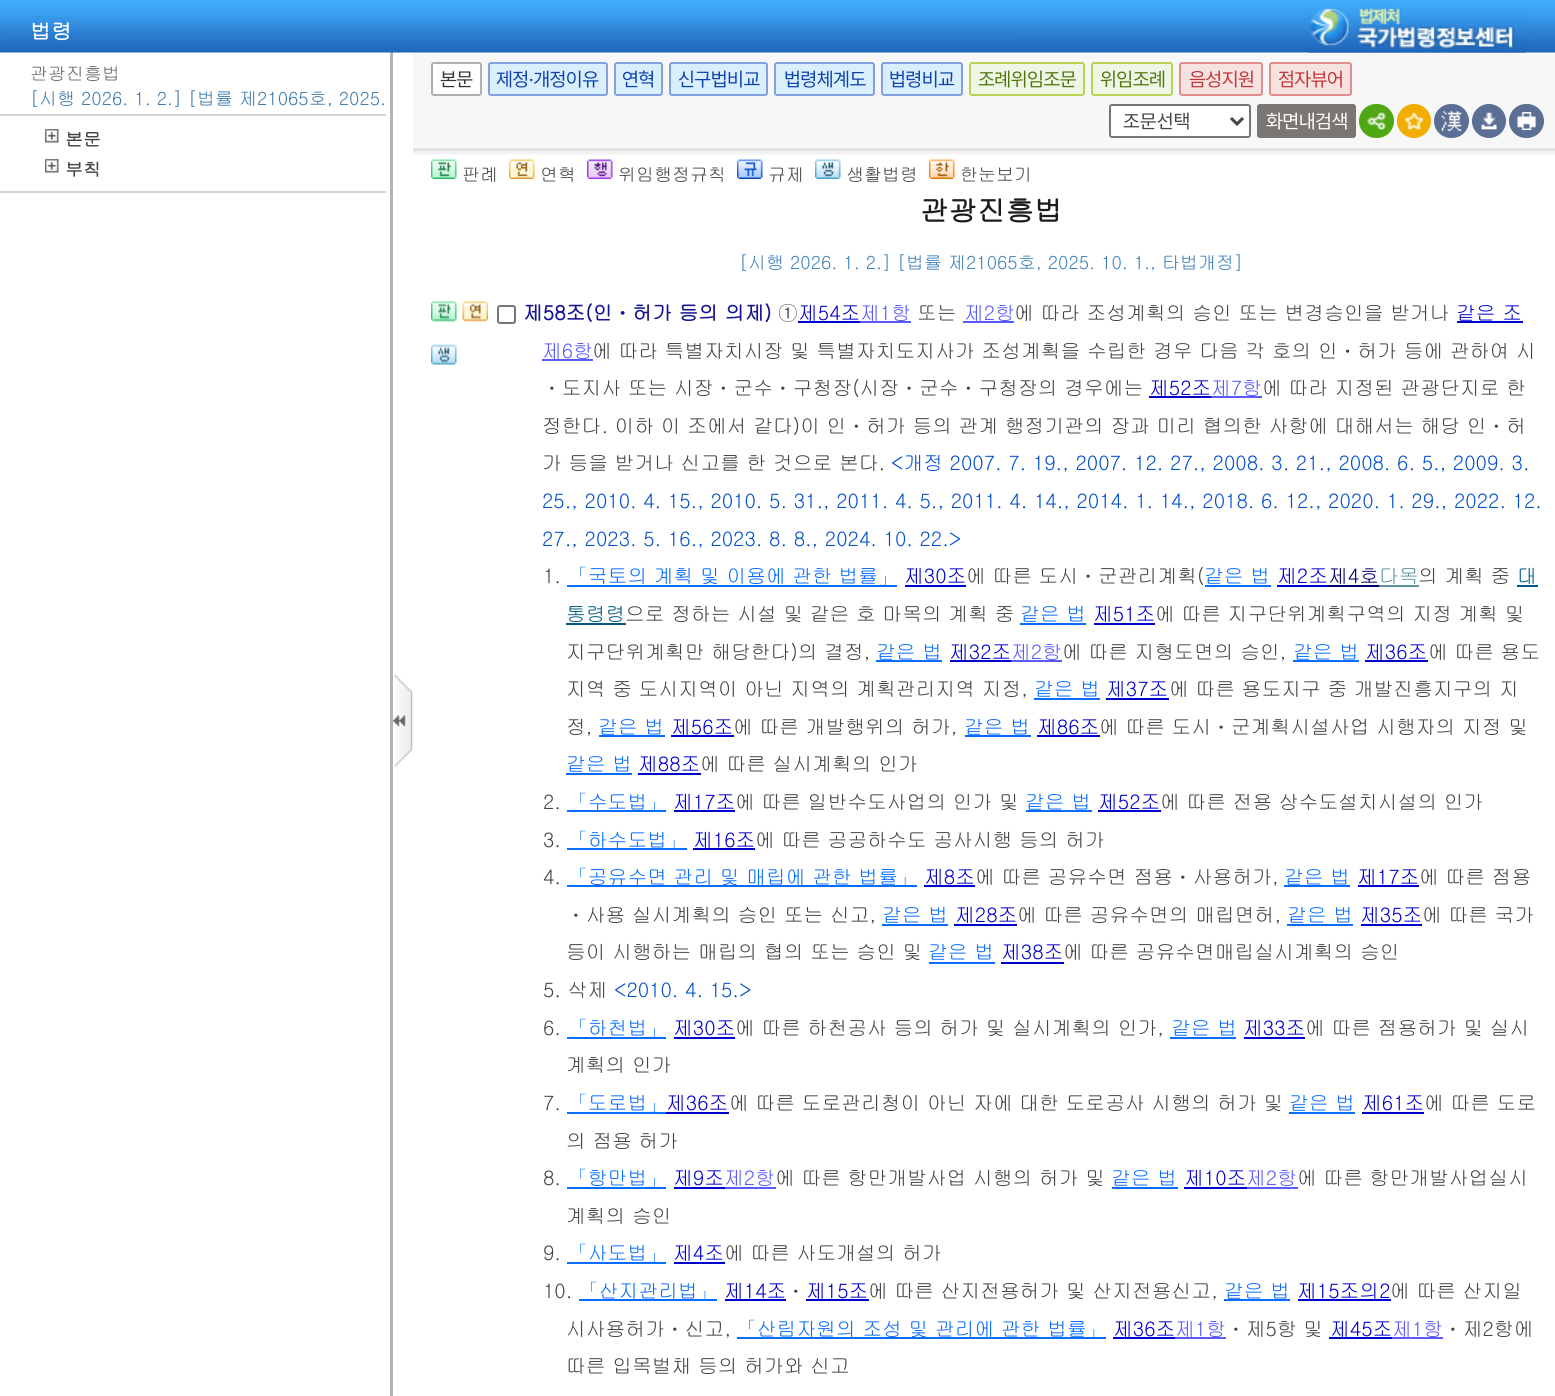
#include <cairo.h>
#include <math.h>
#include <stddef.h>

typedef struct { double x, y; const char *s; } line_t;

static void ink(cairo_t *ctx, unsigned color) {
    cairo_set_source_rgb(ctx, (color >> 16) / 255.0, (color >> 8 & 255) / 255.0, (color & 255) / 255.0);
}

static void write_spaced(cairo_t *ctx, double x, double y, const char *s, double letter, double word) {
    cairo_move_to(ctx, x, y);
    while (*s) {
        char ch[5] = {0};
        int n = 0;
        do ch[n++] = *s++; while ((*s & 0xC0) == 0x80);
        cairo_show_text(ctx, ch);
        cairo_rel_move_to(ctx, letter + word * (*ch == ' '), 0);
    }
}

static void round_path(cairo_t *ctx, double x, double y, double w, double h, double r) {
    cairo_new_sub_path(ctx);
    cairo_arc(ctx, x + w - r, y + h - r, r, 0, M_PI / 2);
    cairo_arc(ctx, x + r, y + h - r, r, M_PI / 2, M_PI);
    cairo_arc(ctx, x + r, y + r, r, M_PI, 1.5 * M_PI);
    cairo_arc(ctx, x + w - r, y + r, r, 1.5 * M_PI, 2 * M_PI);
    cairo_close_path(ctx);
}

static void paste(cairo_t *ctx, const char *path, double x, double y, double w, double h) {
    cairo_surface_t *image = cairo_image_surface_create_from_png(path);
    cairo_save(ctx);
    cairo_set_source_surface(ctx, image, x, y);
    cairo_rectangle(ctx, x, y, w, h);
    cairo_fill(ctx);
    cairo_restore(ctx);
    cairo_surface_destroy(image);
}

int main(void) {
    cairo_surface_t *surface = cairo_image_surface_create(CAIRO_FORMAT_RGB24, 1555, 1396);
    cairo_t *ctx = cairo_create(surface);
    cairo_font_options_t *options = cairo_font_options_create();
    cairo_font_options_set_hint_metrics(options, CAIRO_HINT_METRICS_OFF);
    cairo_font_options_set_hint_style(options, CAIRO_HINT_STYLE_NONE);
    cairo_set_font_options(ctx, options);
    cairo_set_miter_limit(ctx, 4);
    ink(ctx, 0xFFFFFF);
    cairo_paint(ctx);
    ink(ctx, 0xF7F7F7);
    cairo_rectangle(ctx, 413, 52, 1142, 103);
    cairo_fill(ctx);
    ink(ctx, 0xB4B4B4);
    cairo_rectangle(ctx, 390, 51, 3, 1345);
    cairo_fill(ctx);
    paste(ctx, "media/1.png", 0, 0, 1555, 53);
    cairo_select_font_face(ctx, "Gulim", CAIRO_FONT_SLANT_NORMAL, CAIRO_FONT_WEIGHT_BOLD);
    cairo_set_font_size(ctx, 21);
    ink(ctx, 0xFFFFFF);
    cairo_move_to(ctx, 30, 39);
    cairo_show_text(ctx, "법령");
    paste(ctx, "media/2.png", 1308, 7, 218, 46);
    ink(ctx, 0xD4D4D4);
    cairo_rectangle(ctx, 0, 191, 386, 2);
    cairo_fill(ctx);
    cairo_select_font_face(ctx, "Gulim", CAIRO_FONT_SLANT_NORMAL, CAIRO_FONT_WEIGHT_NORMAL);
    cairo_set_font_size(ctx, 18);
    ink(ctx, 0x666666);
    cairo_move_to(ctx, 30, 80);
    cairo_show_text(ctx, "관광진흥법");
    ink(ctx, 0x3C7AAC);
    cairo_move_to(ctx, 30, 105);
    cairo_show_text(ctx, "[시행 2026. 1. 2.] [법률 제21065호, 2025.");
    ink(ctx, 0xD4D4D4);
    cairo_rectangle(ctx, 0, 114, 386, 2);
    cairo_fill(ctx);
    paste(ctx, "media/3.png", 45, 129, 14, 14);
    cairo_select_font_face(ctx, "Gulim", CAIRO_FONT_SLANT_NORMAL, CAIRO_FONT_WEIGHT_BOLD);
    ink(ctx, 0x444444);
    cairo_move_to(ctx, 65, 146);
    cairo_show_text(ctx, "본문");
    paste(ctx, "media/3.png", 45, 159, 14, 14);
    cairo_move_to(ctx, 65, 176);
    cairo_show_text(ctx, "부칙");
    paste(ctx, "media/4.png", 413, 148, 1142, 6);
    ink(ctx, 0xFFFFFF);
    round_path(ctx, 432, 63, 49, 32, 2);
    cairo_fill_preserve(ctx);
    ink(ctx, 0xAFAFAF);
    cairo_stroke(ctx);
    cairo_select_font_face(ctx, "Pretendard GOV", CAIRO_FONT_SLANT_NORMAL, CAIRO_FONT_WEIGHT_NORMAL);
    cairo_set_font_size(ctx, 19.5);
    ink(ctx, 0x333333);
    write_spaced(ctx, 440, 86, "본문", -0.5, 0);
    ink(ctx, 0xD9EFFD);
    round_path(ctx, 489, 63, 118, 32, 2);
    cairo_fill_preserve(ctx);
    ink(ctx, 0x81A2DF);
    cairo_stroke(ctx);
    ink(ctx, 0x0D41AB);
    write_spaced(ctx, 496, 86, "제정·개정이유", -0.5, 0);
    ink(ctx, 0xD9EFFD);
    round_path(ctx, 615, 63, 47, 32, 2);
    cairo_fill_preserve(ctx);
    ink(ctx, 0x81A2DF);
    cairo_stroke(ctx);
    ink(ctx, 0x0D41AB);
    write_spaced(ctx, 622, 86, "연혁", -0.5, 0);
    ink(ctx, 0xD9EFFD);
    round_path(ctx, 670, 63, 97, 32, 2);
    cairo_fill_preserve(ctx);
    ink(ctx, 0x81A2DF);
    cairo_stroke(ctx);
    ink(ctx, 0x0D41AB);
    write_spaced(ctx, 678, 86, "신구법비교", -0.5, 0);
    ink(ctx, 0xD9EFFD);
    round_path(ctx, 775, 63, 99, 32, 2);
    cairo_fill_preserve(ctx);
    ink(ctx, 0x81A2DF);
    cairo_stroke(ctx);
    ink(ctx, 0x0D41AB);
    write_spaced(ctx, 784, 86, "법령체계도", -0.5, 0);
    ink(ctx, 0xD9EFFD);
    round_path(ctx, 882, 63, 80, 32, 2);
    cairo_fill_preserve(ctx);
    ink(ctx, 0x81A2DF);
    cairo_stroke(ctx);
    ink(ctx, 0x0D41AB);
    write_spaced(ctx, 889, 86, "법령비교", -0.5, 0);
    ink(ctx, 0xEFF6E6);
    round_path(ctx, 970, 63, 114, 32, 2);
    cairo_fill_preserve(ctx);
    ink(ctx, 0xB8D453);
    cairo_stroke(ctx);
    ink(ctx, 0x4D770A);
    write_spaced(ctx, 978, 86, "조례위임조문", -0.5, 0);
    ink(ctx, 0xEFF6E6);
    round_path(ctx, 1092, 63, 80, 32, 2);
    cairo_fill_preserve(ctx);
    ink(ctx, 0xB8D453);
    cairo_stroke(ctx);
    ink(ctx, 0x4D770A);
    write_spaced(ctx, 1100, 86, "위임조례", -0.5, 0);
    ink(ctx, 0xF7E2E2);
    round_path(ctx, 1180, 63, 82, 32, 2);
    cairo_fill_preserve(ctx);
    ink(ctx, 0xE28D8D);
    cairo_stroke(ctx);
    ink(ctx, 0xC13535);
    write_spaced(ctx, 1189, 86, "음성지원", -0.5, 0);
    ink(ctx, 0xF7E2E2);
    round_path(ctx, 1270, 63, 81, 32, 2);
    cairo_fill_preserve(ctx);
    ink(ctx, 0xE28D8D);
    cairo_stroke(ctx);
    ink(ctx, 0xC13535);
    write_spaced(ctx, 1278, 86, "점자뷰어", -0.5, 0);
    ink(ctx, 0xFFFFFF);
    round_path(ctx, 1110, 105, 140, 32, 2);
    cairo_fill_preserve(ctx);
    ink(ctx, 0x767676);
    cairo_stroke(ctx);
    cairo_new_path(ctx);
    cairo_move_to(ctx, 1231, 118);
    cairo_line_to(ctx, 1237, 124);
    cairo_line_to(ctx, 1243, 118);
    ink(ctx, 0x444444);
    cairo_set_line_width(ctx, 3);
    cairo_stroke(ctx);
    cairo_move_to(ctx, 1123, 128);
    cairo_show_text(ctx, "조문선택");
    ink(ctx, 0x7B7671);
    round_path(ctx, 1258, 105, 97, 32, 2);
    cairo_fill_preserve(ctx);
    cairo_set_line_width(ctx, 2);
    cairo_stroke(ctx);
    ink(ctx, 0xFFFFFF);
    write_spaced(ctx, 1266, 128, "화면내검색", -0.5, 0);
    ink(ctx, 0x4EA713);
    round_path(ctx, 1359, 104, 35, 34, 17);
    cairo_fill(ctx);
    paste(ctx, "media/5.png", 1367, 112, 19, 18);
    ink(ctx, 0xF3AC00);
    cairo_arc(ctx, 1414, 121, 17, 0, 2 * M_PI);
    cairo_fill(ctx);
    paste(ctx, "media/6.png", 1405, 112, 19, 18);
    ink(ctx, 0x5B6E93);
    round_path(ctx, 1434, 104, 35, 34, 17);
    cairo_fill(ctx);
    paste(ctx, "media/7.png", 1441, 111, 21, 20);
    cairo_arc(ctx, 1489, 121, 17, 0, 2 * M_PI);
    cairo_fill(ctx);
    paste(ctx, "media/8.png", 1481, 112, 16, 18);
    round_path(ctx, 1509, 104, 35, 34, 17);
    cairo_fill(ctx);
    paste(ctx, "media/9.png", 1517, 112, 19, 19);
    paste(ctx, "media/10.png", 431, 159, 26, 20);
    cairo_select_font_face(ctx, "Gulim", CAIRO_FONT_SLANT_NORMAL, CAIRO_FONT_WEIGHT_NORMAL);
    cairo_set_font_size(ctx, 18);
    ink(ctx, 0x444444);
    cairo_move_to(ctx, 462, 181);
    cairo_show_text(ctx, "판례");
    paste(ctx, "media/11.png", 509, 159, 26, 20);
    cairo_move_to(ctx, 540, 181);
    cairo_show_text(ctx, "연혁");
    paste(ctx, "media/12.png", 587, 159, 26, 20);
    cairo_move_to(ctx, 618, 181);
    cairo_show_text(ctx, "위임행정규칙");
    paste(ctx, "media/13.png", 737, 159, 26, 20);
    cairo_move_to(ctx, 768, 181);
    cairo_show_text(ctx, "규제");
    paste(ctx, "media/14.png", 815, 159, 26, 20);
    cairo_move_to(ctx, 846, 181);
    cairo_show_text(ctx, "생활법령");
    paste(ctx, "media/15.png", 929, 159, 26, 20);
    cairo_move_to(ctx, 960, 181);
    cairo_show_text(ctx, "한눈보기");
    cairo_select_font_face(ctx, "Gulim", CAIRO_FONT_SLANT_NORMAL, CAIRO_FONT_WEIGHT_BOLD);
    cairo_set_font_size(ctx, 28.5);
    ink(ctx, 0x1C1C1C);
    cairo_move_to(ctx, 920, 221);
    cairo_show_text(ctx, "관광진흥법");
    cairo_select_font_face(ctx, "Gulim", CAIRO_FONT_SLANT_NORMAL, CAIRO_FONT_WEIGHT_NORMAL);
    cairo_set_font_size(ctx, 18);
    ink(ctx, 0x3C7FBC);
    cairo_move_to(ctx, 739, 269);
    cairo_show_text(ctx, "[시행 2026. 1. 2.] [법률 제21065호, 2025. 10. 1., 타법개정]");
    paste(ctx, "media/16.png", 431, 301, 26, 21);
    paste(ctx, "media/17.png", 462, 301, 26, 21);
    paste(ctx, "media/18.png", 431, 344, 26, 21);
    round_path(ctx, 498, 306, 17, 17, 2);
    ink(ctx, 0x767676);
    cairo_stroke(ctx);
    cairo_select_font_face(ctx, "Gulim", CAIRO_FONT_SLANT_NORMAL, CAIRO_FONT_WEIGHT_BOLD);
    cairo_set_font_size(ctx, 19.8);
    ink(ctx, 0x151594);
    cairo_move_to(ctx, 523, 320);
    cairo_show_text(ctx, "제58조(인ㆍ허가 등의 의제)");
    cairo_select_font_face(ctx, "Gulim", CAIRO_FONT_SLANT_NORMAL, CAIRO_FONT_WEIGHT_NORMAL);
    ink(ctx, 0x444444);
    cairo_move_to(ctx, 778, 320);
    cairo_show_text(ctx, "①");
    ink(ctx, 0x0000CD);
    cairo_move_to(ctx, 798, 320);
    cairo_show_text(ctx, "제54조");
    cairo_rectangle(ctx, 798, 321, 62, 2);
    cairo_fill(ctx);
    ink(ctx, 0x5A5AFF);
    cairo_move_to(ctx, 860, 320);
    cairo_show_text(ctx, "제1항");
    cairo_rectangle(ctx, 860, 321, 51, 2);
    cairo_fill(ctx);
    ink(ctx, 0x444444);
    cairo_move_to(ctx, 917, 320);
    cairo_show_text(ctx, "또는");
    ink(ctx, 0x5A5AFF);
    cairo_move_to(ctx, 964, 320);
    cairo_show_text(ctx, "제2항");
    cairo_rectangle(ctx, 963, 321, 51, 2);
    cairo_fill(ctx);
    ink(ctx, 0x444444);
    cairo_move_to(ctx, 1014, 320);
    cairo_show_text(ctx, "에 따라 조성계획의 승인 또는 변경승인을 받거나");
    ink(ctx, 0x0000CD);
    cairo_move_to(ctx, 1456, 320);
    cairo_show_text(ctx, "같은 조");
    cairo_rectangle(ctx, 1457, 321, 66, 2);
    cairo_fill(ctx);
    ink(ctx, 0x5A5AFF);
    cairo_move_to(ctx, 542, 358);
    cairo_show_text(ctx, "제6항");
    cairo_rectangle(ctx, 542, 359, 51, 2);
    cairo_fill(ctx);
    ink(ctx, 0x444444);
    cairo_move_to(ctx, 592, 358);
    cairo_show_text(ctx, "에 따라 특별자치시장 및 특별자치도지사가 조성계획을 수립한 경우 다음 각 호의 인ㆍ허가 등에 관하여 시");
    cairo_move_to(ctx, 542, 395);
    cairo_show_text(ctx, "ㆍ도지사 또는 시장ㆍ군수ㆍ구청장(시장ㆍ군수ㆍ구청장의 경우에는");
    ink(ctx, 0x0000CD);
    cairo_move_to(ctx, 1149, 395);
    cairo_show_text(ctx, "제52조");
    cairo_rectangle(ctx, 1149, 396, 62, 2);
    cairo_fill(ctx);
    ink(ctx, 0x5A5AFF);
    cairo_move_to(ctx, 1211, 395);
    cairo_show_text(ctx, "제7항");
    cairo_rectangle(ctx, 1211, 396, 51, 2);
    cairo_fill(ctx);
    ink(ctx, 0x444444);
    {
        static const line_t items[] = {
            {1262, 395, "에 따라 지정된 관광단지로 한"},
            {542, 433, "정한다. 이하 이 조에서 같다)이 인ㆍ허가 등의 관계 행정기관의 장과 미리 협의한 사항에 대해서는 해당 인ㆍ허"},
            {542, 470, "가 등을 받거나 신고를 한 것으로 본다."},
        };
        for (size_t i = 0; i < sizeof items / sizeof *items; i++) {
            cairo_move_to(ctx, items[i].x, items[i].y);
            cairo_show_text(ctx, items[i].s);
        }
    }
    ink(ctx, 0x024FCE);
    {
        static const line_t items[] = {
            {891, 470, "<개정 2007. 7. 19., 2007. 12. 27., 2008. 3. 21., 2008. 6. 5., 2009. 3."},
            {542, 508, "25., 2010. 4. 15., 2010. 5. 31., 2011. 4. 5., 2011. 4. 14., 2014. 1. 14., 2018. 6. 12., 2020. 1. 29., 2022. 12."},
            {542, 546, "27., 2023. 5. 16., 2023. 8. 8., 2024. 10. 22.>"},
        };
        for (size_t i = 0; i < sizeof items / sizeof *items; i++) {
            cairo_move_to(ctx, items[i].x, items[i].y);
            cairo_show_text(ctx, items[i].s);
        }
    }
    ink(ctx, 0x444444);
    cairo_move_to(ctx, 543, 583);
    cairo_show_text(ctx, "1.");
    ink(ctx, 0x086DFF);
    cairo_rectangle(ctx, 567, 585, 330, 2);
    cairo_fill(ctx);
    cairo_move_to(ctx, 568, 583);
    cairo_show_text(ctx, "「국토의 계획 및 이용에 관한 법률」");
    ink(ctx, 0x0000CD);
    cairo_move_to(ctx, 904, 583);
    cairo_show_text(ctx, "제30조");
    cairo_rectangle(ctx, 905, 585, 61, 2);
    cairo_fill(ctx);
    ink(ctx, 0x444444);
    cairo_move_to(ctx, 966, 583);
    cairo_show_text(ctx, "에 따른 도시ㆍ군관리계획(");
    ink(ctx, 0x086DFF);
    cairo_move_to(ctx, 1204, 583);
    cairo_show_text(ctx, "같은 법");
    cairo_rectangle(ctx, 1205, 585, 66, 2);
    cairo_fill(ctx);
    ink(ctx, 0x0000CD);
    cairo_move_to(ctx, 1277, 583);
    cairo_show_text(ctx, "제2조");
    cairo_rectangle(ctx, 1277, 585, 51, 2);
    cairo_fill(ctx);
    ink(ctx, 0x000069);
    cairo_move_to(ctx, 1328, 583);
    cairo_show_text(ctx, "제4호");
    cairo_rectangle(ctx, 1328, 585, 51, 2);
    cairo_fill(ctx);
    ink(ctx, 0x5F92A0);
    cairo_move_to(ctx, 1379, 583);
    cairo_show_text(ctx, "다목");
    cairo_rectangle(ctx, 1379, 585, 40, 2);
    cairo_fill(ctx);
    ink(ctx, 0x444444);
    cairo_move_to(ctx, 1418, 583);
    cairo_show_text(ctx, "의 계획 중");
    ink(ctx, 0x005A84);
    cairo_move_to(ctx, 1517, 583);
    cairo_show_text(ctx, "대");
    cairo_rectangle(ctx, 1517, 585, 21, 2);
    cairo_fill(ctx);
    cairo_move_to(ctx, 566, 621);
    cairo_show_text(ctx, "통령령");
    cairo_rectangle(ctx, 566, 623, 60, 2);
    cairo_fill(ctx);
    ink(ctx, 0x444444);
    cairo_move_to(ctx, 625, 621);
    cairo_show_text(ctx, "으로 정하는 시설 및 같은 호 마목의 계획 중");
    ink(ctx, 0x086DFF);
    cairo_move_to(ctx, 1020, 621);
    cairo_show_text(ctx, "같은 법");
    cairo_rectangle(ctx, 1020, 623, 66, 2);
    cairo_fill(ctx);
    ink(ctx, 0x0000CD);
    cairo_move_to(ctx, 1093, 621);
    cairo_show_text(ctx, "제51조");
    cairo_rectangle(ctx, 1094, 623, 61, 2);
    cairo_fill(ctx);
    ink(ctx, 0x444444);
    cairo_move_to(ctx, 1155, 621);
    cairo_show_text(ctx, "에 따른 지구단위계획구역의 지정 계획 및");
    cairo_move_to(ctx, 566, 659);
    cairo_show_text(ctx, "지구단위계획만 해당한다)의 결정,");
    ink(ctx, 0x086DFF);
    cairo_move_to(ctx, 876, 659);
    cairo_show_text(ctx, "같은 법");
    cairo_rectangle(ctx, 876, 660, 66, 2);
    cairo_fill(ctx);
    ink(ctx, 0x0000CD);
    cairo_move_to(ctx, 949, 659);
    cairo_show_text(ctx, "제32조");
    cairo_rectangle(ctx, 950, 660, 61, 2);
    cairo_fill(ctx);
    ink(ctx, 0x5A5AFF);
    cairo_move_to(ctx, 1011, 659);
    cairo_show_text(ctx, "제2항");
    cairo_rectangle(ctx, 1011, 660, 51, 2);
    cairo_fill(ctx);
    ink(ctx, 0x444444);
    cairo_move_to(ctx, 1062, 659);
    cairo_show_text(ctx, "에 따른 지형도면의 승인,");
    ink(ctx, 0x086DFF);
    cairo_move_to(ctx, 1293, 659);
    cairo_show_text(ctx, "같은 법");
    cairo_rectangle(ctx, 1293, 660, 66, 2);
    cairo_fill(ctx);
    ink(ctx, 0x0000CD);
    cairo_move_to(ctx, 1365, 659);
    cairo_show_text(ctx, "제36조");
    cairo_rectangle(ctx, 1365, 660, 63, 2);
    cairo_fill(ctx);
    ink(ctx, 0x444444);
    cairo_move_to(ctx, 1428, 659);
    cairo_show_text(ctx, "에 따른 용도");
    cairo_move_to(ctx, 566, 696);
    cairo_show_text(ctx, "지역 중 도시지역이 아닌 지역의 계획관리지역 지정,");
    ink(ctx, 0x086DFF);
    cairo_move_to(ctx, 1034, 696);
    cairo_show_text(ctx, "같은 법");
    cairo_rectangle(ctx, 1034, 698, 66, 2);
    cairo_fill(ctx);
    ink(ctx, 0x0000CD);
    cairo_move_to(ctx, 1106, 696);
    cairo_show_text(ctx, "제37조");
    cairo_rectangle(ctx, 1106, 698, 63, 2);
    cairo_fill(ctx);
    ink(ctx, 0x444444);
    cairo_move_to(ctx, 1169, 696);
    cairo_show_text(ctx, "에 따른 용도지구 중 개발진흥지구의 지");
    cairo_move_to(ctx, 566, 734);
    cairo_show_text(ctx, "정,");
    ink(ctx, 0x086DFF);
    cairo_move_to(ctx, 598, 734);
    cairo_show_text(ctx, "같은 법");
    cairo_rectangle(ctx, 599, 735, 66, 2);
    cairo_fill(ctx);
    ink(ctx, 0x0000CD);
    cairo_move_to(ctx, 671, 734);
    cairo_show_text(ctx, "제56조");
    cairo_rectangle(ctx, 671, 735, 63, 2);
    cairo_fill(ctx);
    ink(ctx, 0x444444);
    cairo_move_to(ctx, 733, 734);
    cairo_show_text(ctx, "에 따른 개발행위의 허가,");
    ink(ctx, 0x086DFF);
    cairo_move_to(ctx, 964, 734);
    cairo_show_text(ctx, "같은 법");
    cairo_rectangle(ctx, 965, 735, 66, 2);
    cairo_fill(ctx);
    ink(ctx, 0x0000CD);
    cairo_move_to(ctx, 1037, 734);
    cairo_show_text(ctx, "제86조");
    cairo_rectangle(ctx, 1037, 735, 63, 2);
    cairo_fill(ctx);
    ink(ctx, 0x444444);
    cairo_move_to(ctx, 1099, 734);
    cairo_show_text(ctx, "에 따른 도시ㆍ군계획시설사업 시행자의 지정 및");
    ink(ctx, 0x086DFF);
    cairo_move_to(ctx, 566, 771);
    cairo_show_text(ctx, "같은 법");
    cairo_rectangle(ctx, 566, 773, 66, 2);
    cairo_fill(ctx);
    ink(ctx, 0x0000CD);
    cairo_move_to(ctx, 638, 771);
    cairo_show_text(ctx, "제88조");
    cairo_rectangle(ctx, 638, 773, 63, 2);
    cairo_fill(ctx);
    ink(ctx, 0x444444);
    cairo_move_to(ctx, 700, 771);
    cairo_show_text(ctx, "에 따른 실시계획의 인가");
    cairo_move_to(ctx, 543, 809);
    cairo_show_text(ctx, "2.");
    ink(ctx, 0x086DFF);
    cairo_rectangle(ctx, 567, 810, 99, 2);
    cairo_fill(ctx);
    cairo_move_to(ctx, 568, 809);
    cairo_show_text(ctx, "「수도법」");
    ink(ctx, 0x0000CD);
    cairo_move_to(ctx, 673, 809);
    cairo_show_text(ctx, "제17조");
    cairo_rectangle(ctx, 674, 810, 61, 2);
    cairo_fill(ctx);
    ink(ctx, 0x444444);
    cairo_move_to(ctx, 735, 809);
    cairo_show_text(ctx, "에 따른 일반수도사업의 인가 및");
    ink(ctx, 0x086DFF);
    cairo_move_to(ctx, 1025, 809);
    cairo_show_text(ctx, "같은 법");
    cairo_rectangle(ctx, 1026, 810, 66, 2);
    cairo_fill(ctx);
    ink(ctx, 0x0000CD);
    cairo_move_to(ctx, 1098, 809);
    cairo_show_text(ctx, "제52조");
    cairo_rectangle(ctx, 1098, 810, 63, 2);
    cairo_fill(ctx);
    ink(ctx, 0x444444);
    cairo_move_to(ctx, 1160, 809);
    cairo_show_text(ctx, "에 따른 전용 상수도설치시설의 인가");
    cairo_move_to(ctx, 543, 847);
    cairo_show_text(ctx, "3.");
    ink(ctx, 0x086DFF);
    cairo_rectangle(ctx, 567, 848, 120, 2);
    cairo_fill(ctx);
    cairo_move_to(ctx, 568, 847);
    cairo_show_text(ctx, "「하수도법」");
    ink(ctx, 0x0000CD);
    cairo_move_to(ctx, 693, 847);
    cairo_show_text(ctx, "제16조");
    cairo_rectangle(ctx, 693, 848, 62, 2);
    cairo_fill(ctx);
    ink(ctx, 0x444444);
    cairo_move_to(ctx, 755, 847);
    cairo_show_text(ctx, "에 따른 공공하수도 공사시행 등의 허가");
    cairo_move_to(ctx, 543, 884);
    cairo_show_text(ctx, "4.");
    ink(ctx, 0x086DFF);
    cairo_rectangle(ctx, 567, 885, 350, 2);
    cairo_fill(ctx);
    cairo_move_to(ctx, 568, 884);
    cairo_show_text(ctx, "「공유수면 관리 및 매립에 관한 법률」");
    ink(ctx, 0x0000CD);
    cairo_move_to(ctx, 924, 884);
    cairo_show_text(ctx, "제8조");
    cairo_rectangle(ctx, 924, 885, 51, 2);
    cairo_fill(ctx);
    ink(ctx, 0x444444);
    cairo_move_to(ctx, 975, 884);
    cairo_show_text(ctx, "에 따른 공유수면 점용ㆍ사용허가,");
    ink(ctx, 0x086DFF);
    cairo_move_to(ctx, 1284, 884);
    cairo_show_text(ctx, "같은 법");
    cairo_rectangle(ctx, 1284, 885, 66, 2);
    cairo_fill(ctx);
    ink(ctx, 0x0000CD);
    cairo_move_to(ctx, 1357, 884);
    cairo_show_text(ctx, "제17조");
    cairo_rectangle(ctx, 1358, 885, 61, 2);
    cairo_fill(ctx);
    ink(ctx, 0x444444);
    cairo_move_to(ctx, 1419, 884);
    cairo_show_text(ctx, "에 따른 점용");
    cairo_move_to(ctx, 566, 922);
    cairo_show_text(ctx, "ㆍ사용 실시계획의 승인 또는 신고,");
    ink(ctx, 0x086DFF);
    cairo_move_to(ctx, 882, 922);
    cairo_show_text(ctx, "같은 법");
    cairo_rectangle(ctx, 882, 924, 66, 2);
    cairo_fill(ctx);
    ink(ctx, 0x0000CD);
    cairo_move_to(ctx, 955, 922);
    cairo_show_text(ctx, "제28조");
    cairo_rectangle(ctx, 954, 924, 63, 2);
    cairo_fill(ctx);
    ink(ctx, 0x444444);
    cairo_move_to(ctx, 1017, 922);
    cairo_show_text(ctx, "에 따른 공유수면의 매립면허,");
    ink(ctx, 0x086DFF);
    cairo_move_to(ctx, 1287, 922);
    cairo_show_text(ctx, "같은 법");
    cairo_rectangle(ctx, 1287, 924, 66, 2);
    cairo_fill(ctx);
    ink(ctx, 0x0000CD);
    cairo_move_to(ctx, 1360, 922);
    cairo_show_text(ctx, "제35조");
    cairo_rectangle(ctx, 1361, 924, 61, 2);
    cairo_fill(ctx);
    ink(ctx, 0x444444);
    cairo_move_to(ctx, 1422, 922);
    cairo_show_text(ctx, "에 따른 국가");
    cairo_move_to(ctx, 566, 959);
    cairo_show_text(ctx, "등이 시행하는 매립의 협의 또는 승인 및");
    ink(ctx, 0x086DFF);
    cairo_move_to(ctx, 928, 959);
    cairo_show_text(ctx, "같은 법");
    cairo_rectangle(ctx, 929, 962, 66, 2);
    cairo_fill(ctx);
    ink(ctx, 0x0000CD);
    cairo_move_to(ctx, 1001, 959);
    cairo_show_text(ctx, "제38조");
    cairo_rectangle(ctx, 1001, 962, 63, 2);
    cairo_fill(ctx);
    ink(ctx, 0x444444);
    cairo_move_to(ctx, 1063, 959);
    cairo_show_text(ctx, "에 따른 공유수면매립실시계획의 승인");
    cairo_move_to(ctx, 543, 997);
    cairo_show_text(ctx, "5. 삭제");
    ink(ctx, 0x024FCE);
    cairo_move_to(ctx, 614, 997);
    cairo_show_text(ctx, "<2010. 4. 15.>");
    ink(ctx, 0x444444);
    cairo_move_to(ctx, 543, 1035);
    cairo_show_text(ctx, "6.");
    ink(ctx, 0x086DFF);
    cairo_rectangle(ctx, 567, 1037, 99, 2);
    cairo_fill(ctx);
    cairo_move_to(ctx, 568, 1035);
    cairo_show_text(ctx, "「하천법」");
    ink(ctx, 0x0000CD);
    cairo_move_to(ctx, 673, 1035);
    cairo_show_text(ctx, "제30조");
    cairo_rectangle(ctx, 674, 1037, 61, 2);
    cairo_fill(ctx);
    ink(ctx, 0x444444);
    cairo_move_to(ctx, 735, 1035);
    cairo_show_text(ctx, "에 따른 하천공사 등의 허가 및 실시계획의 인가,");
    ink(ctx, 0x086DFF);
    cairo_move_to(ctx, 1171, 1035);
    cairo_show_text(ctx, "같은 법");
    cairo_rectangle(ctx, 1170, 1037, 66, 2);
    cairo_fill(ctx);
    ink(ctx, 0x0000CD);
    cairo_move_to(ctx, 1243, 1035);
    cairo_show_text(ctx, "제33조");
    cairo_rectangle(ctx, 1244, 1037, 61, 2);
    cairo_fill(ctx);
    ink(ctx, 0x444444);
    {
        static const line_t items[] = {
            {1305, 1035, "에 따른 점용허가 및 실시"},
            {566, 1072, "계획의 인가"},
            {543, 1110, "7."},
        };
        for (size_t i = 0; i < sizeof items / sizeof *items; i++) {
            cairo_move_to(ctx, items[i].x, items[i].y);
            cairo_show_text(ctx, items[i].s);
        }
    }
    ink(ctx, 0x086DFF);
    cairo_rectangle(ctx, 567, 1112, 99, 2);
    cairo_fill(ctx);
    cairo_move_to(ctx, 568, 1110);
    cairo_show_text(ctx, "「도로법」");
    ink(ctx, 0x0000CD);
    cairo_move_to(ctx, 666, 1110);
    cairo_show_text(ctx, "제36조");
    cairo_rectangle(ctx, 666, 1112, 63, 2);
    cairo_fill(ctx);
    ink(ctx, 0x444444);
    cairo_move_to(ctx, 729, 1110);
    cairo_show_text(ctx, "에 따른 도로관리청이 아닌 자에 대한 도로공사 시행의 허가 및");
    ink(ctx, 0x086DFF);
    cairo_move_to(ctx, 1289, 1110);
    cairo_show_text(ctx, "같은 법");
    cairo_rectangle(ctx, 1289, 1112, 66, 2);
    cairo_fill(ctx);
    ink(ctx, 0x0000CD);
    cairo_move_to(ctx, 1362, 1110);
    cairo_show_text(ctx, "제61조");
    cairo_rectangle(ctx, 1362, 1112, 62, 2);
    cairo_fill(ctx);
    ink(ctx, 0x444444);
    {
        static const line_t items[] = {
            {1424, 1110, "에 따른 도로"},
            {566, 1148, "의 점용 허가"},
            {543, 1185, "8."},
        };
        for (size_t i = 0; i < sizeof items / sizeof *items; i++) {
            cairo_move_to(ctx, items[i].x, items[i].y);
            cairo_show_text(ctx, items[i].s);
        }
    }
    ink(ctx, 0x086DFF);
    cairo_rectangle(ctx, 567, 1187, 99, 2);
    cairo_fill(ctx);
    cairo_move_to(ctx, 568, 1185);
    cairo_show_text(ctx, "「항만법」");
    ink(ctx, 0x0000CD);
    cairo_move_to(ctx, 673, 1185);
    cairo_show_text(ctx, "제9조");
    cairo_rectangle(ctx, 674, 1187, 51, 2);
    cairo_fill(ctx);
    ink(ctx, 0x5A5AFF);
    cairo_move_to(ctx, 724, 1185);
    cairo_show_text(ctx, "제2항");
    cairo_rectangle(ctx, 725, 1187, 51, 2);
    cairo_fill(ctx);
    ink(ctx, 0x444444);
    cairo_move_to(ctx, 775, 1185);
    cairo_show_text(ctx, "에 따른 항만개발사업 시행의 허가 및");
    ink(ctx, 0x086DFF);
    cairo_move_to(ctx, 1111, 1185);
    cairo_show_text(ctx, "같은 법");
    cairo_rectangle(ctx, 1112, 1187, 66, 2);
    cairo_fill(ctx);
    ink(ctx, 0x0000CD);
    cairo_move_to(ctx, 1184, 1185);
    cairo_show_text(ctx, "제10조");
    cairo_rectangle(ctx, 1184, 1187, 63, 2);
    cairo_fill(ctx);
    ink(ctx, 0x5A5AFF);
    cairo_move_to(ctx, 1246, 1185);
    cairo_show_text(ctx, "제2항");
    cairo_rectangle(ctx, 1247, 1187, 51, 2);
    cairo_fill(ctx);
    ink(ctx, 0x444444);
    {
        static const line_t items[] = {
            {1297, 1185, "에 따른 항만개발사업실시"},
            {566, 1223, "계획의 승인"},
            {543, 1260, "9."},
        };
        for (size_t i = 0; i < sizeof items / sizeof *items; i++) {
            cairo_move_to(ctx, items[i].x, items[i].y);
            cairo_show_text(ctx, items[i].s);
        }
    }
    ink(ctx, 0x086DFF);
    cairo_rectangle(ctx, 567, 1262, 99, 2);
    cairo_fill(ctx);
    cairo_move_to(ctx, 568, 1260);
    cairo_show_text(ctx, "「사도법」");
    ink(ctx, 0x0000CD);
    cairo_move_to(ctx, 673, 1260);
    cairo_show_text(ctx, "제4조");
    cairo_rectangle(ctx, 674, 1262, 51, 2);
    cairo_fill(ctx);
    ink(ctx, 0x444444);
    cairo_move_to(ctx, 724, 1260);
    cairo_show_text(ctx, "에 따른 사도개설의 허가");
    cairo_move_to(ctx, 543, 1298);
    cairo_show_text(ctx, "10.");
    ink(ctx, 0x086DFF);
    cairo_rectangle(ctx, 579, 1299, 138, 2);
    cairo_fill(ctx);
    cairo_move_to(ctx, 579, 1298);
    cairo_show_text(ctx, "「산지관리법」");
    ink(ctx, 0x0000CD);
    cairo_move_to(ctx, 724, 1298);
    cairo_show_text(ctx, "제14조");
    cairo_rectangle(ctx, 725, 1299, 61, 2);
    cairo_fill(ctx);
    ink(ctx, 0x444444);
    cairo_move_to(ctx, 786, 1298);
    cairo_show_text(ctx, "ㆍ");
    ink(ctx, 0x0000CD);
    cairo_move_to(ctx, 806, 1298);
    cairo_show_text(ctx, "제15조");
    cairo_rectangle(ctx, 806, 1299, 63, 2);
    cairo_fill(ctx);
    ink(ctx, 0x444444);
    cairo_move_to(ctx, 868, 1298);
    cairo_show_text(ctx, "에 따른 산지전용허가 및 산지전용신고,");
    ink(ctx, 0x086DFF);
    cairo_move_to(ctx, 1224, 1298);
    cairo_show_text(ctx, "같은 법");
    cairo_rectangle(ctx, 1224, 1299, 66, 2);
    cairo_fill(ctx);
    ink(ctx, 0x0000CD);
    cairo_move_to(ctx, 1297, 1298);
    cairo_show_text(ctx, "제15조의2");
    cairo_rectangle(ctx, 1298, 1299, 93, 2);
    cairo_fill(ctx);
    ink(ctx, 0x444444);
    cairo_move_to(ctx, 1390, 1298);
    cairo_show_text(ctx, "에 따른 산지일");
    cairo_move_to(ctx, 566, 1336);
    cairo_show_text(ctx, "시사용허가ㆍ신고,");
    ink(ctx, 0x086DFF);
    cairo_rectangle(ctx, 737, 1337, 369, 2);
    cairo_fill(ctx);
    cairo_move_to(ctx, 737, 1336);
    cairo_show_text(ctx, "「산림자원의 조성 및 관리에 관한 법률」");
    ink(ctx, 0x0000CD);
    cairo_move_to(ctx, 1113, 1336);
    cairo_show_text(ctx, "제36조");
    cairo_rectangle(ctx, 1113, 1337, 62, 2);
    cairo_fill(ctx);
    ink(ctx, 0x5A5AFF);
    cairo_move_to(ctx, 1175, 1336);
    cairo_show_text(ctx, "제1항");
    cairo_rectangle(ctx, 1175, 1337, 51, 2);
    cairo_fill(ctx);
    ink(ctx, 0x444444);
    cairo_move_to(ctx, 1226, 1336);
    cairo_show_text(ctx, "ㆍ제5항 및");
    ink(ctx, 0x0000CD);
    cairo_move_to(ctx, 1330, 1336);
    cairo_show_text(ctx, "제45조");
    cairo_rectangle(ctx, 1329, 1337, 63, 2);
    cairo_fill(ctx);
    ink(ctx, 0x5A5AFF);
    cairo_move_to(ctx, 1392, 1336);
    cairo_show_text(ctx, "제1항");
    cairo_rectangle(ctx, 1392, 1337, 51, 2);
    cairo_fill(ctx);
    ink(ctx, 0x444444);
    cairo_move_to(ctx, 1443, 1336);
    cairo_show_text(ctx, "ㆍ제2항에");
    cairo_move_to(ctx, 566, 1373);
    cairo_show_text(ctx, "따른 입목벌채 등의 허가와 신고");
    paste(ctx, "media/19.png", 393, 675, 20, 92);
    cairo_surface_write_to_png(surface, "image.png");
    cairo_font_options_destroy(options);
    cairo_destroy(ctx);
    cairo_surface_destroy(surface);
    return 0;
}
